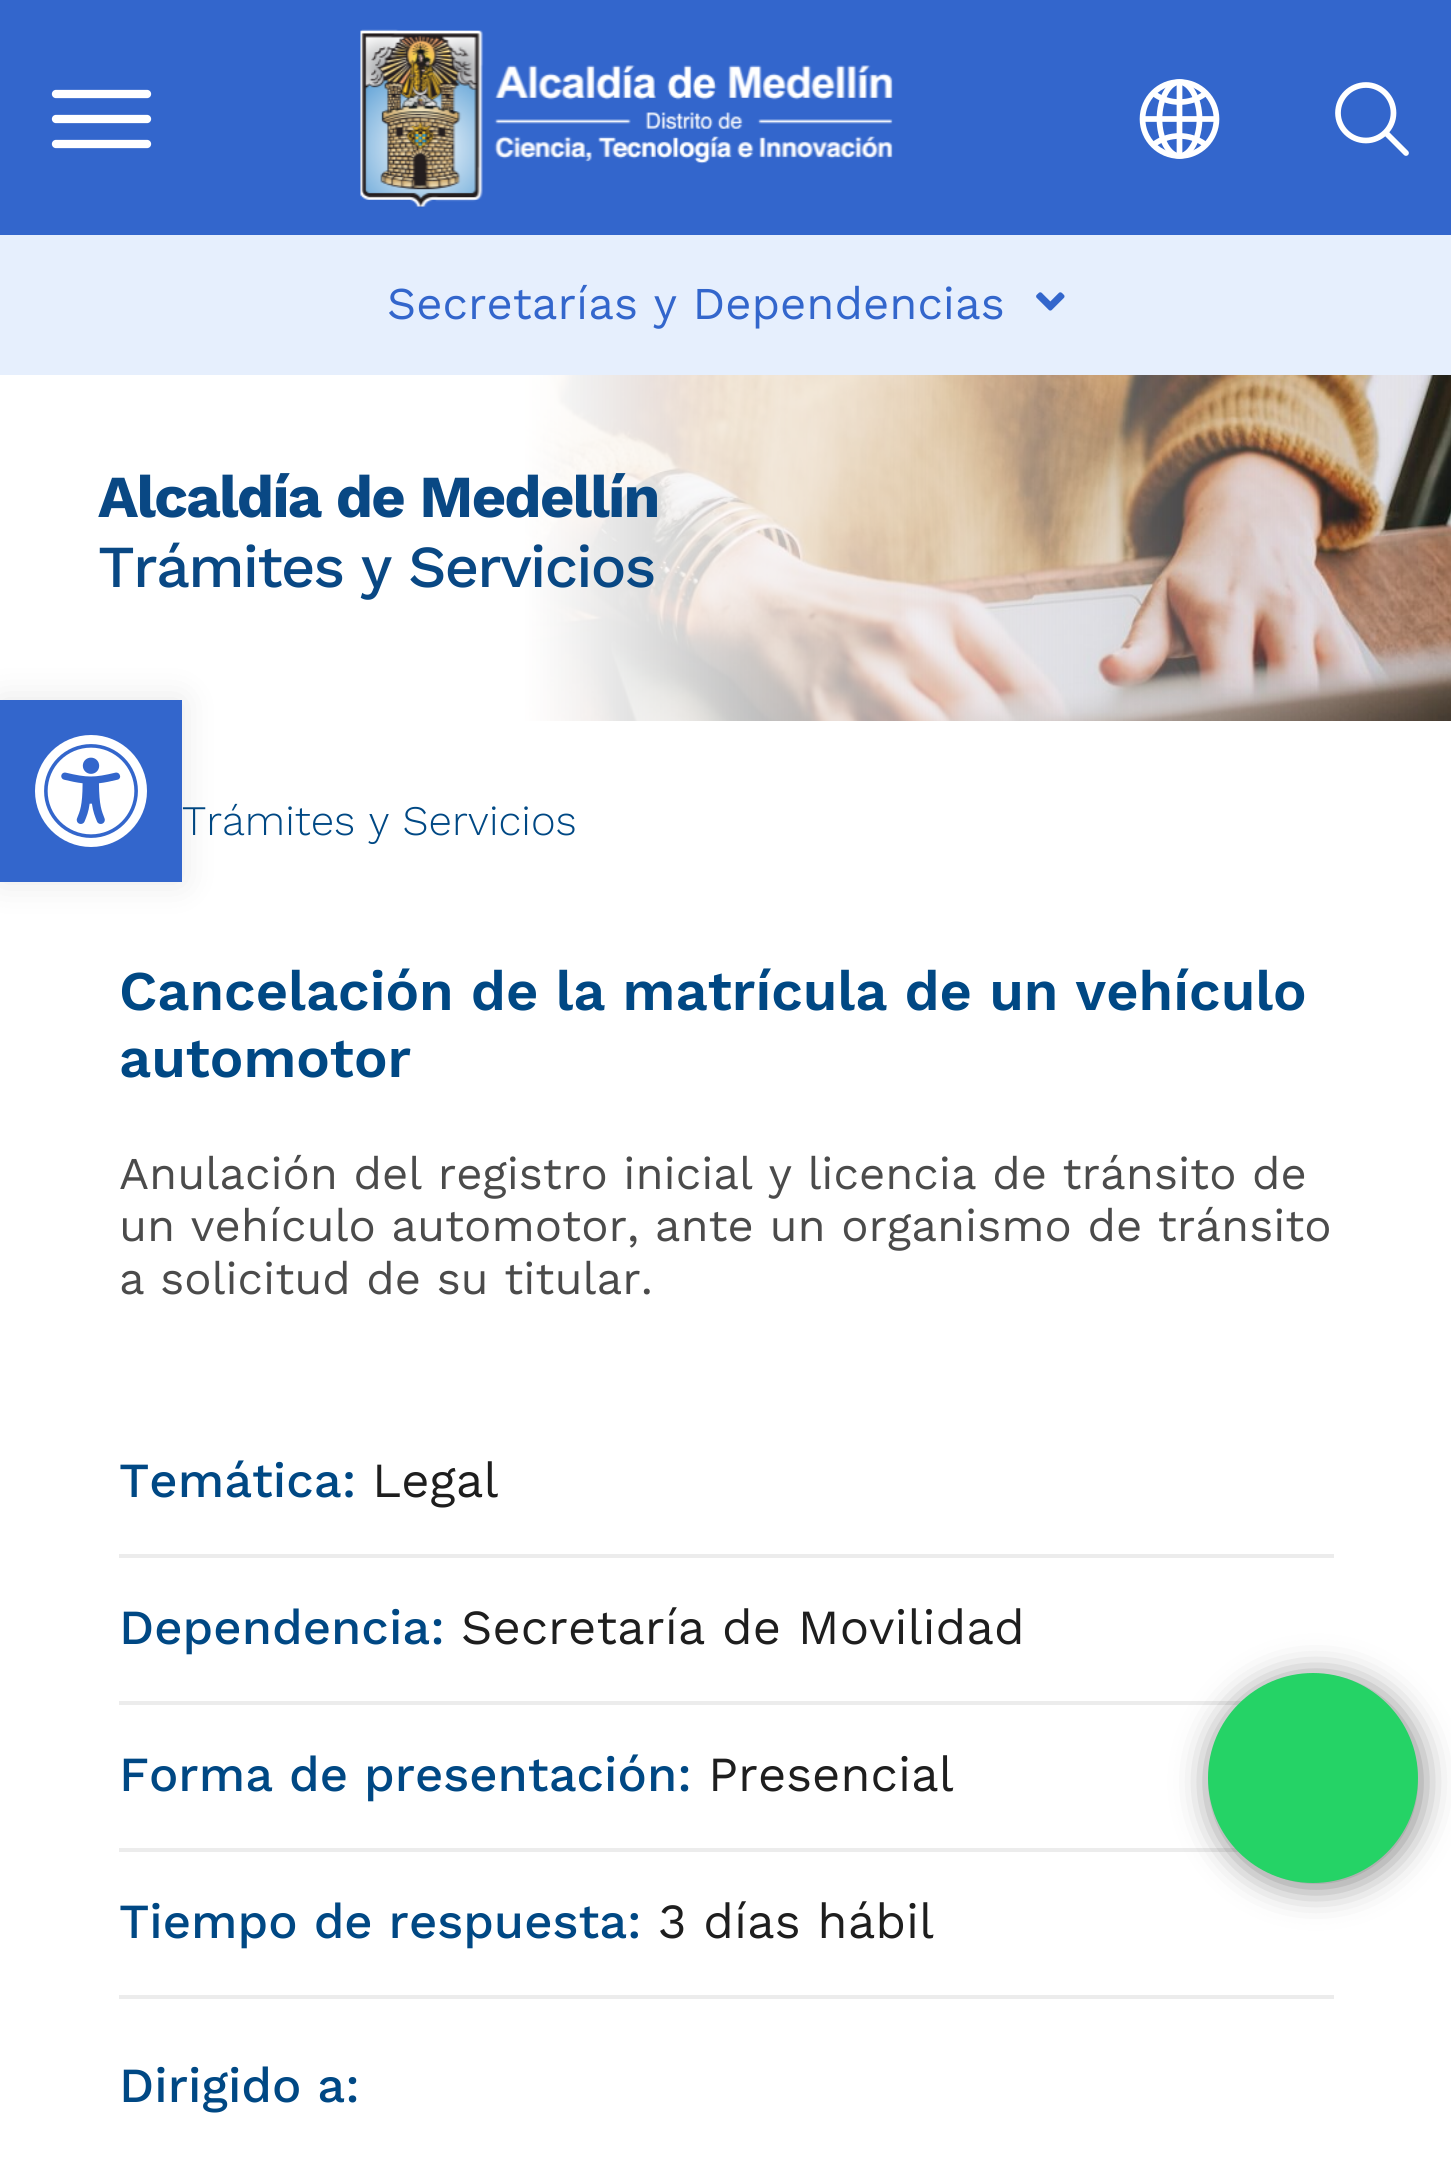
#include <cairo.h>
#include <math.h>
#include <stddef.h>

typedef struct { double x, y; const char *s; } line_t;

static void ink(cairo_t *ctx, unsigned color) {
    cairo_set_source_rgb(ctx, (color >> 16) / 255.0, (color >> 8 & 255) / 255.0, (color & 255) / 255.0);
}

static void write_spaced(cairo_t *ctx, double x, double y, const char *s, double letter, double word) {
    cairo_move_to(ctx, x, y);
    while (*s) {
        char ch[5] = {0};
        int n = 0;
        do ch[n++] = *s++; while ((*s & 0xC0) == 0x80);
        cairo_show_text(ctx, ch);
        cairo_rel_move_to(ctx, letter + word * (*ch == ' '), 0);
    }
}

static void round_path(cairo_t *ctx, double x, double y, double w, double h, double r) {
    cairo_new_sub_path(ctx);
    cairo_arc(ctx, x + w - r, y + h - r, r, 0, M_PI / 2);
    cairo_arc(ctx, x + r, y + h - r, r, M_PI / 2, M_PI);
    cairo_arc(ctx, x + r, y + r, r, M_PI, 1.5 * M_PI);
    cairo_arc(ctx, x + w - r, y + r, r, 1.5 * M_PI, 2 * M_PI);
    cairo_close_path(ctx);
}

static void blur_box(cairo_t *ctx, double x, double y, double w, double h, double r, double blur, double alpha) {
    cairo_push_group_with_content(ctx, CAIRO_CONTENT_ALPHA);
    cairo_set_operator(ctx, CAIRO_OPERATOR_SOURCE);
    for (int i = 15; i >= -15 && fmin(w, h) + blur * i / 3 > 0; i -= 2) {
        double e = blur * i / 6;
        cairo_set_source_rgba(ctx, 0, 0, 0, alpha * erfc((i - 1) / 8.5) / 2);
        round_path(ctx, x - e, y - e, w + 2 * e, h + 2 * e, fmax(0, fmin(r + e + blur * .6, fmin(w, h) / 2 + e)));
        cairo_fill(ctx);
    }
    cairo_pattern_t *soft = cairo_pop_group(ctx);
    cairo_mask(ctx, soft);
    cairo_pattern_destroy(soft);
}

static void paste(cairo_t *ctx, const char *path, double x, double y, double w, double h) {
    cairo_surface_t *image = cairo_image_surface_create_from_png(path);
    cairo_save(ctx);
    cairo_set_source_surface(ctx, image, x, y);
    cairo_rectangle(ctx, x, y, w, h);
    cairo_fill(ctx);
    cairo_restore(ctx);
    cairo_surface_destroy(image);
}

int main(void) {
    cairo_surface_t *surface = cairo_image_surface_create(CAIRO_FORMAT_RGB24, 1451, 2163);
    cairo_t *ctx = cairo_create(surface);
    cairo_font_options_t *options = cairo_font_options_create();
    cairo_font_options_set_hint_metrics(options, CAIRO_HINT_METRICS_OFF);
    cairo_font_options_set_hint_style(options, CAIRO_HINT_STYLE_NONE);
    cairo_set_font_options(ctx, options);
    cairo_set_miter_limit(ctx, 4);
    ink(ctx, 0xFFFFFF);
    cairo_paint(ctx);
    ink(ctx, 0x3366CC);
    cairo_rectangle(ctx, 0, 0, 1451, 235);
    cairo_fill(ctx);
    cairo_new_path(ctx);
    cairo_move_to(ctx, 56, 94);
    cairo_line_to(ctx, 147, 94);
    cairo_move_to(ctx, 56, 119);
    cairo_line_to(ctx, 147, 119);
    cairo_move_to(ctx, 56, 144);
    cairo_line_to(ctx, 147, 144);
    ink(ctx, 0xFFFFFF);
    cairo_set_line_width(ctx, 8.3);
    cairo_set_line_cap(ctx, CAIRO_LINE_CAP_ROUND);
    cairo_stroke(ctx);
    paste(ctx, "media/1.png", 360, 29, 533, 178);
    paste(ctx, "media/2.png", 1139, 79, 81, 80);
    cairo_new_path(ctx);
    cairo_move_to(ctx, 1366, 85);
    cairo_curve_to(ctx, 1350.5, 85, 1338, 97.5, 1338, 113);
    cairo_curve_to(ctx, 1338, 128, 1350.5, 140.5, 1366, 140.5);
    cairo_curve_to(ctx, 1381, 140.5, 1393.5, 128, 1393.5, 113);
    cairo_curve_to(ctx, 1393.5, 97.5, 1381, 85, 1366, 85);
    cairo_close_path(ctx);
    cairo_set_line_width(ctx, 5.7);
    cairo_set_line_cap(ctx, CAIRO_LINE_CAP_BUTT);
    cairo_stroke(ctx);
    cairo_new_path(ctx);
    cairo_move_to(ctx, 1386.5, 133.5);
    cairo_line_to(ctx, 1406, 153);
    cairo_set_line_cap(ctx, CAIRO_LINE_CAP_ROUND);
    cairo_stroke(ctx);
    ink(ctx, 0xE6EFFD);
    cairo_rectangle(ctx, 0, 235, 1451, 140);
    cairo_fill(ctx);
    cairo_select_font_face(ctx, "Work Sans", CAIRO_FONT_SLANT_NORMAL, CAIRO_FONT_WEIGHT_NORMAL);
    cairo_set_font_size(ctx, 45.5);
    ink(ctx, 0x3366CC);
    cairo_move_to(ctx, 387, 319);
    cairo_show_text(ctx, "Secretarías y Dependencias");
    paste(ctx, "media/3.png", 1036, 292, 29, 19);
    paste(ctx, "media/4.png", 0, 375, 1451, 346);
    cairo_select_font_face(ctx, "Work Sans", CAIRO_FONT_SLANT_NORMAL, CAIRO_FONT_WEIGHT_BOLD);
    cairo_set_font_size(ctx, 59.5);
    ink(ctx, 0x094884);
    write_spaced(ctx, 98, 517, "Alcaldía de Medellín", -1.75, 0);
    cairo_select_font_face(ctx, "Work Sans Medium", CAIRO_FONT_SLANT_NORMAL, CAIRO_FONT_WEIGHT_NORMAL);
    write_spaced(ctx, 98, 587, "Trámites y Servicios", -1.75, 0);
    cairo_select_font_face(ctx, "Work Sans Light", CAIRO_FONT_SLANT_NORMAL, CAIRO_FONT_WEIGHT_NORMAL);
    cairo_set_font_size(ctx, 42);
    ink(ctx, 0x004884);
    cairo_move_to(ctx, 182, 835);
    cairo_show_text(ctx, "Trámites y Servicios");
    cairo_select_font_face(ctx, "Work Sans SemiBold", CAIRO_FONT_SLANT_NORMAL, CAIRO_FONT_WEIGHT_NORMAL);
    cairo_set_font_size(ctx, 56);
    cairo_move_to(ctx, 119, 1010);
    cairo_show_text(ctx, "Cancelación de la matrícula de un vehículo");
    cairo_move_to(ctx, 119, 1077);
    cairo_show_text(ctx, "automotor");
    cairo_select_font_face(ctx, "Work Sans", CAIRO_FONT_SLANT_NORMAL, CAIRO_FONT_WEIGHT_NORMAL);
    cairo_set_font_size(ctx, 45.5);
    ink(ctx, 0x4B4B4B);
    {
        static const line_t items[] = {
            {119, 1189, "Anulación del registro inicial y licencia de tránsito de"},
            {119, 1241, "un vehículo automotor, ante un organismo de tránsito"},
            {119, 1294, "a solicitud de su titular."},
        };
        for (size_t i = 0; i < sizeof items / sizeof *items; i++) {
            cairo_move_to(ctx, items[i].x, items[i].y);
            cairo_show_text(ctx, items[i].s);
        }
    }
    ink(ctx, 0xECECEC);
    cairo_rectangle(ctx, 119, 1554, 1215, 4);
    cairo_fill(ctx);
    cairo_select_font_face(ctx, "Work Sans Medium", CAIRO_FONT_SLANT_NORMAL, CAIRO_FONT_WEIGHT_NORMAL);
    cairo_set_font_size(ctx, 49);
    ink(ctx, 0x004884);
    cairo_move_to(ctx, 119, 1497);
    cairo_show_text(ctx, "Temática:");
    cairo_select_font_face(ctx, "Work Sans", CAIRO_FONT_SLANT_NORMAL, CAIRO_FONT_WEIGHT_NORMAL);
    ink(ctx, 0x1E1E1E);
    cairo_move_to(ctx, 372, 1497);
    cairo_show_text(ctx, "Legal");
    ink(ctx, 0xECECEC);
    cairo_rectangle(ctx, 119, 1701, 1123, 4);
    cairo_fill(ctx);
    cairo_select_font_face(ctx, "Work Sans Medium", CAIRO_FONT_SLANT_NORMAL, CAIRO_FONT_WEIGHT_NORMAL);
    ink(ctx, 0x004884);
    cairo_move_to(ctx, 119, 1644);
    cairo_show_text(ctx, "Dependencia:");
    cairo_select_font_face(ctx, "Work Sans", CAIRO_FONT_SLANT_NORMAL, CAIRO_FONT_WEIGHT_NORMAL);
    ink(ctx, 0x1E1E1E);
    cairo_move_to(ctx, 461, 1644);
    cairo_show_text(ctx, "Secretaría de Movilidad");
    ink(ctx, 0xECECEC);
    cairo_rectangle(ctx, 119, 1848, 1120, 4);
    cairo_fill(ctx);
    cairo_select_font_face(ctx, "Work Sans Medium", CAIRO_FONT_SLANT_NORMAL, CAIRO_FONT_WEIGHT_NORMAL);
    ink(ctx, 0x004884);
    cairo_move_to(ctx, 119, 1791);
    cairo_show_text(ctx, "Forma de presentación:");
    cairo_select_font_face(ctx, "Work Sans", CAIRO_FONT_SLANT_NORMAL, CAIRO_FONT_WEIGHT_NORMAL);
    ink(ctx, 0x1E1E1E);
    cairo_move_to(ctx, 708, 1791);
    cairo_show_text(ctx, "Presencial");
    ink(ctx, 0xECECEC);
    cairo_rectangle(ctx, 119, 1995, 1215, 4);
    cairo_fill(ctx);
    cairo_select_font_face(ctx, "Work Sans Medium", CAIRO_FONT_SLANT_NORMAL, CAIRO_FONT_WEIGHT_NORMAL);
    ink(ctx, 0x004884);
    cairo_move_to(ctx, 119, 1938);
    cairo_show_text(ctx, "Tiempo de respuesta:");
    cairo_select_font_face(ctx, "Work Sans", CAIRO_FONT_SLANT_NORMAL, CAIRO_FONT_WEIGHT_NORMAL);
    ink(ctx, 0x1E1E1E);
    cairo_move_to(ctx, 658, 1938);
    cairo_show_text(ctx, "3 días hábil");
    cairo_select_font_face(ctx, "Work Sans Medium", CAIRO_FONT_SLANT_NORMAL, CAIRO_FONT_WEIGHT_NORMAL);
    ink(ctx, 0x004884);
    cairo_move_to(ctx, 119, 2102);
    cairo_show_text(ctx, "Dirigido a:");
    ink(ctx, 0x000000);
    blur_box(ctx, 1211, 1677, 210, 210, 105, 17.5, 0.5);
    ink(ctx, 0x25D366);
    cairo_arc(ctx, 1313, 1778, 105, 0, 2 * M_PI);
    cairo_fill(ctx);
    ink(ctx, 0x000000);
    blur_box(ctx, 0, 700, 182, 182, 0, 17.5, 0.1);
    ink(ctx, 0x3366CC);
    cairo_rectangle(ctx, 0, 700, 182, 182);
    cairo_fill(ctx);
    paste(ctx, "media/5.png", 35, 735, 112, 112);
    cairo_surface_write_to_png(surface, "image.png");
    cairo_font_options_destroy(options);
    cairo_destroy(ctx);
    cairo_surface_destroy(surface);
    return 0;
}
